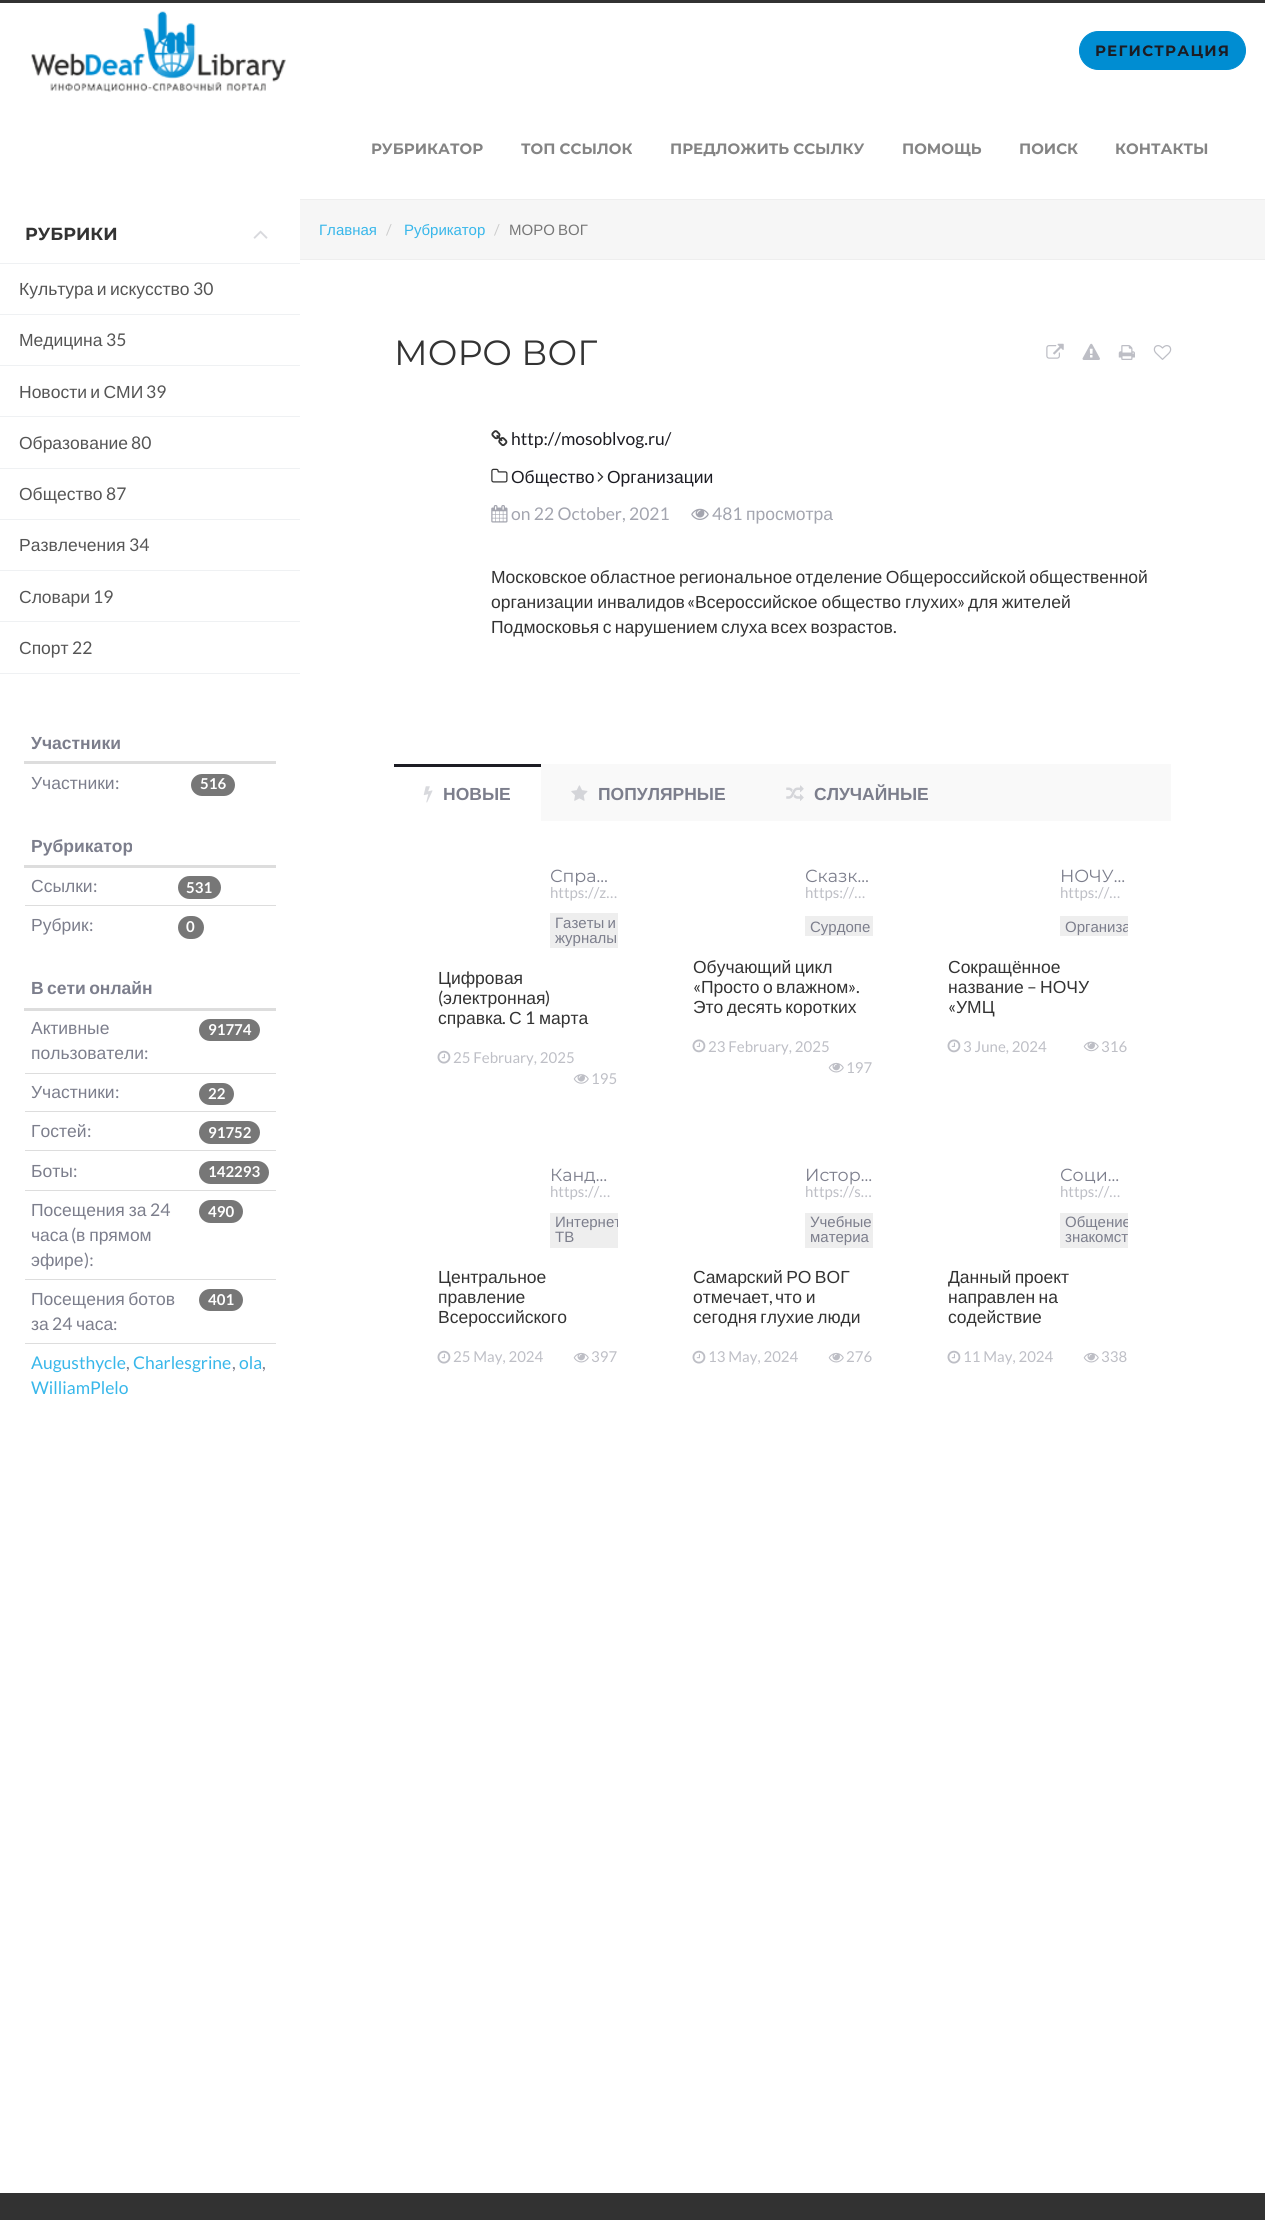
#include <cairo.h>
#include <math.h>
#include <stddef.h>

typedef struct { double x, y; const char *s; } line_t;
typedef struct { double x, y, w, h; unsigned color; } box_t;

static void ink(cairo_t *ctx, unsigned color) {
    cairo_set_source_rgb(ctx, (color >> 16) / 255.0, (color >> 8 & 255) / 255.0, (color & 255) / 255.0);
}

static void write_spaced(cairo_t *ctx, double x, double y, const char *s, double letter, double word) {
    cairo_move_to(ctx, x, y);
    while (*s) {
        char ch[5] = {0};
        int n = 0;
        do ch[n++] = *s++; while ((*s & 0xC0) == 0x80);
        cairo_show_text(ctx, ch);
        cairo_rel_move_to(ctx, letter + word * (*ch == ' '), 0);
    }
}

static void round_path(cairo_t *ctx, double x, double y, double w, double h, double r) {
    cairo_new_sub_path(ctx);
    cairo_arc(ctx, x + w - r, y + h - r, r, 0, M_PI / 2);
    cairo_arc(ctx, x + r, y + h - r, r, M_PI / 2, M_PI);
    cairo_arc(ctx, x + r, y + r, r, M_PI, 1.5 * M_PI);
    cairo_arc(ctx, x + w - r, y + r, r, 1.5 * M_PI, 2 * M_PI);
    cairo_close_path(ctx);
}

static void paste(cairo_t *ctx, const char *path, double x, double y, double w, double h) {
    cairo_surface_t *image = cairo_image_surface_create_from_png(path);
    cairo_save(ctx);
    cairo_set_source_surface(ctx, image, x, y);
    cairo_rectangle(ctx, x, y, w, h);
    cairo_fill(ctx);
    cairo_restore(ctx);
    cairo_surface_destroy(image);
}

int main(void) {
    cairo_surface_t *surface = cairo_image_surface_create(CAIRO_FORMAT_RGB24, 1265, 2220);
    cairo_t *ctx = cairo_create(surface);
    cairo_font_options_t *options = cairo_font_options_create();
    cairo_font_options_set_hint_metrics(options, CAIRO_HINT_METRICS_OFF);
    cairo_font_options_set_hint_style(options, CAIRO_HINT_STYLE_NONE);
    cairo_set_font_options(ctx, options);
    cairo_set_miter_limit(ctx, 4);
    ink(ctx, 0xFFFFFF);
    cairo_paint(ctx);
    ink(ctx, 0x323232);
    cairo_rectangle(ctx, 0, 0, 1265, 3);
    cairo_fill(ctx);
    paste(ctx, "media/1.png", 31, 11, 255, 81);
    ink(ctx, 0x008DD2);
    round_path(ctx, 1079.5, 31.5, 166, 38, 19);
    cairo_fill_preserve(ctx);
    cairo_set_line_width(ctx, 1);
    cairo_stroke(ctx);
    cairo_select_font_face(ctx, "Montserrat", CAIRO_FONT_SLANT_NORMAL, CAIRO_FONT_WEIGHT_BOLD);
    cairo_set_font_size(ctx, 15);
    ink(ctx, 0x1C1C23);
    write_spaced(ctx, 1095, 56, "РЕГИСТРАЦИЯ", 1.25, 0);
    ink(ctx, 0x848484);
    {
        static const line_t items[] = {
            {371, 154, "РУБРИКАТОР"},
            {521, 154, "ТОП ССЫЛОК"},
            {670, 154, "ПРЕДЛОЖИТЬ ССЫЛКУ"},
            {902, 154, "ПОМОЩЬ"},
            {1019, 154, "ПОИСК"},
            {1115, 154, "КОНТАКТЫ"},
        };
        for (size_t i = 0; i < sizeof items / sizeof *items; i++) {
            cairo_move_to(ctx, items[i].x, items[i].y);
            cairo_show_text(ctx, items[i].s);
        }
    }
    cairo_set_font_size(ctx, 17.5);
    ink(ctx, 0x333333);
    cairo_move_to(ctx, 25, 240);
    cairo_show_text(ctx, "РУБРИКИ");
    paste(ctx, "media/2.png", 253, 230, 15, 9);
    ink(ctx, 0xEFF1F3);
    cairo_rectangle(ctx, 0, 263, 300, 1);
    cairo_fill(ctx);
    cairo_select_font_face(ctx, "Liberation Sans", CAIRO_FONT_SLANT_NORMAL, CAIRO_FONT_WEIGHT_NORMAL);
    ink(ctx, 0x555555);
    write_spaced(ctx, 19, 295, "Культура и искусство", 0, -1.5);
    cairo_select_font_face(ctx, "Lato", CAIRO_FONT_SLANT_NORMAL, CAIRO_FONT_WEIGHT_NORMAL);
    cairo_move_to(ctx, 193, 295);
    cairo_show_text(ctx, "30");
    ink(ctx, 0xEFF1F3);
    cairo_rectangle(ctx, 0, 314, 300, 1);
    cairo_fill(ctx);
    cairo_select_font_face(ctx, "Liberation Sans", CAIRO_FONT_SLANT_NORMAL, CAIRO_FONT_WEIGHT_NORMAL);
    ink(ctx, 0x555555);
    cairo_move_to(ctx, 19, 346);
    cairo_show_text(ctx, "Медицина");
    cairo_select_font_face(ctx, "Lato", CAIRO_FONT_SLANT_NORMAL, CAIRO_FONT_WEIGHT_NORMAL);
    cairo_move_to(ctx, 106, 346);
    cairo_show_text(ctx, "35");
    ink(ctx, 0xEFF1F3);
    cairo_rectangle(ctx, 0, 365, 300, 1);
    cairo_fill(ctx);
    cairo_select_font_face(ctx, "Liberation Sans", CAIRO_FONT_SLANT_NORMAL, CAIRO_FONT_WEIGHT_NORMAL);
    ink(ctx, 0x555555);
    write_spaced(ctx, 19, 398, "Новости и СМИ", 0, -1.5);
    cairo_select_font_face(ctx, "Lato", CAIRO_FONT_SLANT_NORMAL, CAIRO_FONT_WEIGHT_NORMAL);
    cairo_move_to(ctx, 146, 398);
    cairo_show_text(ctx, "39");
    ink(ctx, 0xEFF1F3);
    cairo_rectangle(ctx, 0, 416, 300, 1);
    cairo_fill(ctx);
    cairo_select_font_face(ctx, "Liberation Sans", CAIRO_FONT_SLANT_NORMAL, CAIRO_FONT_WEIGHT_NORMAL);
    ink(ctx, 0x555555);
    cairo_move_to(ctx, 19, 449);
    cairo_show_text(ctx, "Образование");
    cairo_select_font_face(ctx, "Lato", CAIRO_FONT_SLANT_NORMAL, CAIRO_FONT_WEIGHT_NORMAL);
    cairo_move_to(ctx, 131, 449);
    cairo_show_text(ctx, "80");
    ink(ctx, 0xEFF1F3);
    cairo_rectangle(ctx, 0, 468, 300, 1);
    cairo_fill(ctx);
    cairo_select_font_face(ctx, "Liberation Sans", CAIRO_FONT_SLANT_NORMAL, CAIRO_FONT_WEIGHT_NORMAL);
    ink(ctx, 0x555555);
    cairo_move_to(ctx, 19, 500);
    cairo_show_text(ctx, "Общество");
    cairo_select_font_face(ctx, "Lato", CAIRO_FONT_SLANT_NORMAL, CAIRO_FONT_WEIGHT_NORMAL);
    cairo_move_to(ctx, 106, 500);
    cairo_show_text(ctx, "87");
    ink(ctx, 0xEFF1F3);
    cairo_rectangle(ctx, 0, 519, 300, 1);
    cairo_fill(ctx);
    cairo_select_font_face(ctx, "Liberation Sans", CAIRO_FONT_SLANT_NORMAL, CAIRO_FONT_WEIGHT_NORMAL);
    ink(ctx, 0x555555);
    cairo_move_to(ctx, 19, 551);
    cairo_show_text(ctx, "Развлечения");
    cairo_select_font_face(ctx, "Lato", CAIRO_FONT_SLANT_NORMAL, CAIRO_FONT_WEIGHT_NORMAL);
    cairo_move_to(ctx, 129, 551);
    cairo_show_text(ctx, "34");
    ink(ctx, 0xEFF1F3);
    cairo_rectangle(ctx, 0, 570, 300, 1);
    cairo_fill(ctx);
    cairo_select_font_face(ctx, "Liberation Sans", CAIRO_FONT_SLANT_NORMAL, CAIRO_FONT_WEIGHT_NORMAL);
    ink(ctx, 0x555555);
    cairo_move_to(ctx, 19, 603);
    cairo_show_text(ctx, "Словари");
    cairo_select_font_face(ctx, "Lato", CAIRO_FONT_SLANT_NORMAL, CAIRO_FONT_WEIGHT_NORMAL);
    cairo_move_to(ctx, 93, 603);
    cairo_show_text(ctx, "19");
    ink(ctx, 0xEFF1F3);
    cairo_rectangle(ctx, 0, 621, 300, 1);
    cairo_fill(ctx);
    cairo_rectangle(ctx, 0, 673, 300, 1);
    cairo_fill(ctx);
    cairo_select_font_face(ctx, "Liberation Sans", CAIRO_FONT_SLANT_NORMAL, CAIRO_FONT_WEIGHT_NORMAL);
    ink(ctx, 0x555555);
    cairo_move_to(ctx, 19, 654);
    cairo_show_text(ctx, "Спорт");
    cairo_select_font_face(ctx, "Lato", CAIRO_FONT_SLANT_NORMAL, CAIRO_FONT_WEIGHT_NORMAL);
    cairo_move_to(ctx, 72, 654);
    cairo_show_text(ctx, "22");
    ink(ctx, 0xDDDDDD);
    cairo_rectangle(ctx, 24, 761, 252, 3);
    cairo_fill(ctx);
    cairo_select_font_face(ctx, "Liberation Sans", CAIRO_FONT_SLANT_NORMAL, CAIRO_FONT_WEIGHT_BOLD);
    ink(ctx, 0x7C7E8C);
    cairo_move_to(ctx, 31, 749);
    cairo_show_text(ctx, "Участники");
    cairo_select_font_face(ctx, "Liberation Sans", CAIRO_FONT_SLANT_NORMAL, CAIRO_FONT_WEIGHT_NORMAL);
    cairo_move_to(ctx, 31, 789);
    cairo_show_text(ctx, "Участники");
    cairo_select_font_face(ctx, "Lato", CAIRO_FONT_SLANT_NORMAL, CAIRO_FONT_WEIGHT_NORMAL);
    cairo_move_to(ctx, 115, 789);
    cairo_show_text(ctx, ":");
    ink(ctx, 0x777777);
    round_path(ctx, 191, 774, 44, 22, 11);
    cairo_fill(ctx);
    cairo_select_font_face(ctx, "Lato", CAIRO_FONT_SLANT_NORMAL, CAIRO_FONT_WEIGHT_BOLD);
    cairo_set_font_size(ctx, 15);
    ink(ctx, 0xFFFFFF);
    cairo_move_to(ctx, 200, 789);
    cairo_show_text(ctx, "516");
    ink(ctx, 0xDDDDDD);
    cairo_rectangle(ctx, 24, 865, 252, 3);
    cairo_fill(ctx);
    cairo_select_font_face(ctx, "Liberation Sans", CAIRO_FONT_SLANT_NORMAL, CAIRO_FONT_WEIGHT_BOLD);
    cairo_set_font_size(ctx, 17.5);
    ink(ctx, 0x7C7E8C);
    cairo_move_to(ctx, 31, 852);
    cairo_show_text(ctx, "Рубрикатор");
    cairo_select_font_face(ctx, "Liberation Sans", CAIRO_FONT_SLANT_NORMAL, CAIRO_FONT_WEIGHT_NORMAL);
    cairo_move_to(ctx, 31, 892);
    cairo_show_text(ctx, "Ссылки");
    cairo_select_font_face(ctx, "Lato", CAIRO_FONT_SLANT_NORMAL, CAIRO_FONT_WEIGHT_NORMAL);
    cairo_move_to(ctx, 93, 892);
    cairo_show_text(ctx, ":");
    ink(ctx, 0x777777);
    round_path(ctx, 178, 876, 43, 23, 11.5);
    cairo_fill(ctx);
    cairo_select_font_face(ctx, "Lato", CAIRO_FONT_SLANT_NORMAL, CAIRO_FONT_WEIGHT_BOLD);
    cairo_set_font_size(ctx, 15);
    ink(ctx, 0xFFFFFF);
    cairo_move_to(ctx, 186, 893);
    cairo_show_text(ctx, "531");
    cairo_select_font_face(ctx, "Liberation Sans", CAIRO_FONT_SLANT_NORMAL, CAIRO_FONT_WEIGHT_NORMAL);
    cairo_set_font_size(ctx, 17.5);
    ink(ctx, 0x7C7E8C);
    cairo_move_to(ctx, 31, 931);
    cairo_show_text(ctx, "Рубрик");
    cairo_select_font_face(ctx, "Lato", CAIRO_FONT_SLANT_NORMAL, CAIRO_FONT_WEIGHT_NORMAL);
    cairo_move_to(ctx, 89, 931);
    cairo_show_text(ctx, ":");
    ink(ctx, 0xDDDDDD);
    cairo_rectangle(ctx, 25, 905, 251, 1);
    cairo_fill(ctx);
    ink(ctx, 0x777777);
    round_path(ctx, 178, 916, 26, 23, 11.5);
    cairo_fill(ctx);
    cairo_select_font_face(ctx, "Lato", CAIRO_FONT_SLANT_NORMAL, CAIRO_FONT_WEIGHT_BOLD);
    cairo_set_font_size(ctx, 15);
    ink(ctx, 0xFFFFFF);
    cairo_move_to(ctx, 186, 932);
    cairo_show_text(ctx, "0");
    ink(ctx, 0xDDDDDD);
    cairo_rectangle(ctx, 24, 1008, 252, 3);
    cairo_fill(ctx);
    cairo_select_font_face(ctx, "Liberation Sans", CAIRO_FONT_SLANT_NORMAL, CAIRO_FONT_WEIGHT_BOLD);
    cairo_set_font_size(ctx, 17.5);
    ink(ctx, 0x7C7E8C);
    write_spaced(ctx, 31, 994, "В сети онлайн", 0, -1.5);
    cairo_select_font_face(ctx, "Liberation Sans", CAIRO_FONT_SLANT_NORMAL, CAIRO_FONT_WEIGHT_NORMAL);
    cairo_move_to(ctx, 31, 1034);
    cairo_show_text(ctx, "Активные");
    cairo_move_to(ctx, 31, 1059);
    cairo_show_text(ctx, "пользователи");
    cairo_select_font_face(ctx, "Lato", CAIRO_FONT_SLANT_NORMAL, CAIRO_FONT_WEIGHT_NORMAL);
    cairo_move_to(ctx, 144, 1059);
    cairo_show_text(ctx, ":");
    ink(ctx, 0x777777);
    round_path(ctx, 199, 1019, 61, 22, 11);
    cairo_fill(ctx);
    cairo_select_font_face(ctx, "Lato", CAIRO_FONT_SLANT_NORMAL, CAIRO_FONT_WEIGHT_BOLD);
    cairo_set_font_size(ctx, 15);
    ink(ctx, 0xFFFFFF);
    cairo_move_to(ctx, 208, 1035);
    cairo_show_text(ctx, "91774");
    cairo_select_font_face(ctx, "Liberation Sans", CAIRO_FONT_SLANT_NORMAL, CAIRO_FONT_WEIGHT_NORMAL);
    cairo_set_font_size(ctx, 17.5);
    ink(ctx, 0x7C7E8C);
    cairo_move_to(ctx, 31, 1098);
    cairo_show_text(ctx, "Участники");
    cairo_select_font_face(ctx, "Lato", CAIRO_FONT_SLANT_NORMAL, CAIRO_FONT_WEIGHT_NORMAL);
    cairo_move_to(ctx, 115, 1098);
    cairo_show_text(ctx, ":");
    ink(ctx, 0xDDDDDD);
    cairo_rectangle(ctx, 25, 1073, 251, 1);
    cairo_fill(ctx);
    ink(ctx, 0x777777);
    round_path(ctx, 199, 1083, 35, 22, 11);
    cairo_fill(ctx);
    cairo_select_font_face(ctx, "Lato", CAIRO_FONT_SLANT_NORMAL, CAIRO_FONT_WEIGHT_BOLD);
    cairo_set_font_size(ctx, 15);
    ink(ctx, 0xFFFFFF);
    cairo_move_to(ctx, 208, 1099);
    cairo_show_text(ctx, "22");
    cairo_select_font_face(ctx, "Liberation Sans", CAIRO_FONT_SLANT_NORMAL, CAIRO_FONT_WEIGHT_NORMAL);
    cairo_set_font_size(ctx, 17.5);
    ink(ctx, 0x7C7E8C);
    cairo_move_to(ctx, 31, 1137);
    cairo_show_text(ctx, "Гостей");
    cairo_select_font_face(ctx, "Lato", CAIRO_FONT_SLANT_NORMAL, CAIRO_FONT_WEIGHT_NORMAL);
    cairo_move_to(ctx, 87, 1137);
    cairo_show_text(ctx, ":");
    ink(ctx, 0xDDDDDD);
    cairo_rectangle(ctx, 25, 1111, 251, 1);
    cairo_fill(ctx);
    ink(ctx, 0x777777);
    round_path(ctx, 199, 1121, 61, 23, 11.5);
    cairo_fill(ctx);
    cairo_select_font_face(ctx, "Lato", CAIRO_FONT_SLANT_NORMAL, CAIRO_FONT_WEIGHT_BOLD);
    cairo_set_font_size(ctx, 15);
    ink(ctx, 0xFFFFFF);
    cairo_move_to(ctx, 208, 1138);
    cairo_show_text(ctx, "91752");
    cairo_select_font_face(ctx, "Liberation Sans", CAIRO_FONT_SLANT_NORMAL, CAIRO_FONT_WEIGHT_NORMAL);
    cairo_set_font_size(ctx, 17.5);
    ink(ctx, 0x7C7E8C);
    cairo_move_to(ctx, 31, 1177);
    cairo_show_text(ctx, "Боты");
    cairo_select_font_face(ctx, "Lato", CAIRO_FONT_SLANT_NORMAL, CAIRO_FONT_WEIGHT_NORMAL);
    cairo_move_to(ctx, 73, 1177);
    cairo_show_text(ctx, ":");
    ink(ctx, 0xDDDDDD);
    cairo_rectangle(ctx, 25, 1150, 251, 1);
    cairo_fill(ctx);
    ink(ctx, 0x777777);
    round_path(ctx, 199, 1161, 70, 23, 11.5);
    cairo_fill(ctx);
    cairo_select_font_face(ctx, "Lato", CAIRO_FONT_SLANT_NORMAL, CAIRO_FONT_WEIGHT_BOLD);
    cairo_set_font_size(ctx, 15);
    ink(ctx, 0xFFFFFF);
    cairo_move_to(ctx, 208, 1177);
    cairo_show_text(ctx, "142293");
    cairo_select_font_face(ctx, "Liberation Sans", CAIRO_FONT_SLANT_NORMAL, CAIRO_FONT_WEIGHT_NORMAL);
    cairo_set_font_size(ctx, 17.5);
    ink(ctx, 0x7C7E8C);
    write_spaced(ctx, 31, 1216, "Посещения за", 0, -1);
    cairo_select_font_face(ctx, "Lato", CAIRO_FONT_SLANT_NORMAL, CAIRO_FONT_WEIGHT_NORMAL);
    cairo_move_to(ctx, 150, 1216);
    cairo_show_text(ctx, "24");
    cairo_select_font_face(ctx, "Liberation Sans", CAIRO_FONT_SLANT_NORMAL, CAIRO_FONT_WEIGHT_NORMAL);
    cairo_move_to(ctx, 31, 1241);
    cairo_show_text(ctx, "часа");
    cairo_select_font_face(ctx, "Lato", CAIRO_FONT_SLANT_NORMAL, CAIRO_FONT_WEIGHT_NORMAL);
    cairo_move_to(ctx, 71, 1241);
    cairo_show_text(ctx, "(");
    cairo_select_font_face(ctx, "Liberation Sans", CAIRO_FONT_SLANT_NORMAL, CAIRO_FONT_WEIGHT_NORMAL);
    write_spaced(ctx, 76, 1241, "в прямом", 0, -1);
    cairo_move_to(ctx, 31, 1266);
    cairo_show_text(ctx, "эфире");
    cairo_select_font_face(ctx, "Lato", CAIRO_FONT_SLANT_NORMAL, CAIRO_FONT_WEIGHT_NORMAL);
    cairo_move_to(ctx, 84, 1266);
    cairo_show_text(ctx, "):");
    ink(ctx, 0xDDDDDD);
    cairo_rectangle(ctx, 25, 1190, 251, 1);
    cairo_fill(ctx);
    ink(ctx, 0x777777);
    round_path(ctx, 199, 1200, 44, 23, 11.5);
    cairo_fill(ctx);
    cairo_select_font_face(ctx, "Lato", CAIRO_FONT_SLANT_NORMAL, CAIRO_FONT_WEIGHT_BOLD);
    cairo_set_font_size(ctx, 15);
    ink(ctx, 0xFFFFFF);
    cairo_move_to(ctx, 208, 1217);
    cairo_show_text(ctx, "490");
    cairo_select_font_face(ctx, "Liberation Sans", CAIRO_FONT_SLANT_NORMAL, CAIRO_FONT_WEIGHT_NORMAL);
    cairo_set_font_size(ctx, 17.5);
    ink(ctx, 0x7C7E8C);
    write_spaced(ctx, 31, 1305, "Посещения ботов", 0, -1.5);
    cairo_move_to(ctx, 31, 1330);
    cairo_show_text(ctx, "за");
    cairo_select_font_face(ctx, "Lato", CAIRO_FONT_SLANT_NORMAL, CAIRO_FONT_WEIGHT_NORMAL);
    cairo_move_to(ctx, 52, 1330);
    cairo_show_text(ctx, "24");
    cairo_select_font_face(ctx, "Liberation Sans", CAIRO_FONT_SLANT_NORMAL, CAIRO_FONT_WEIGHT_NORMAL);
    cairo_move_to(ctx, 76, 1330);
    cairo_show_text(ctx, "часа");
    cairo_select_font_face(ctx, "Lato", CAIRO_FONT_SLANT_NORMAL, CAIRO_FONT_WEIGHT_NORMAL);
    cairo_move_to(ctx, 113, 1330);
    cairo_show_text(ctx, ":");
    ink(ctx, 0xDDDDDD);
    cairo_rectangle(ctx, 25, 1279, 251, 1);
    cairo_fill(ctx);
    ink(ctx, 0x777777);
    round_path(ctx, 199, 1289, 44, 22, 11);
    cairo_fill(ctx);
    cairo_select_font_face(ctx, "Lato", CAIRO_FONT_SLANT_NORMAL, CAIRO_FONT_WEIGHT_BOLD);
    cairo_set_font_size(ctx, 15);
    ink(ctx, 0xFFFFFF);
    cairo_move_to(ctx, 208, 1305);
    cairo_show_text(ctx, "401");
    ink(ctx, 0xDDDDDD);
    cairo_rectangle(ctx, 25, 1343, 251, 1);
    cairo_fill(ctx);
    cairo_select_font_face(ctx, "Lato", CAIRO_FONT_SLANT_NORMAL, CAIRO_FONT_WEIGHT_NORMAL);
    cairo_set_font_size(ctx, 17.5);
    ink(ctx, 0x38B7EA);
    cairo_move_to(ctx, 31, 1369);
    cairo_show_text(ctx, "Augusthycle");
    ink(ctx, 0x7C7E8C);
    cairo_move_to(ctx, 126, 1369);
    cairo_show_text(ctx, ",");
    ink(ctx, 0x38B7EA);
    cairo_move_to(ctx, 133, 1369);
    cairo_show_text(ctx, "Charlesgrine");
    ink(ctx, 0x7C7E8C);
    cairo_move_to(ctx, 232, 1369);
    cairo_show_text(ctx, ",");
    ink(ctx, 0x38B7EA);
    cairo_move_to(ctx, 239, 1369);
    cairo_show_text(ctx, "ola");
    ink(ctx, 0x7C7E8C);
    cairo_move_to(ctx, 262, 1369);
    cairo_show_text(ctx, ",");
    ink(ctx, 0x38B7EA);
    cairo_move_to(ctx, 31, 1394);
    cairo_show_text(ctx, "WilliamPlelo");
    {
        static const box_t items[] = {
            {300, 200, 965, 59, 0xF6F6F6},
            {300, 199, 965, 1, 0xEEEEEE},
            {300, 259, 965, 1, 0xEEEEEE},
        };
        for (size_t i = 0; i < sizeof items / sizeof *items; i++) {
            ink(ctx, items[i].color);
            cairo_rectangle(ctx, items[i].x, items[i].y, items[i].w, items[i].h);
            cairo_fill(ctx);
        }
    }
    cairo_select_font_face(ctx, "Liberation Sans", CAIRO_FONT_SLANT_NORMAL, CAIRO_FONT_WEIGHT_NORMAL);
    cairo_set_font_size(ctx, 15);
    ink(ctx, 0x38B7EA);
    cairo_move_to(ctx, 319, 235);
    cairo_show_text(ctx, "Главная");
    cairo_select_font_face(ctx, "Lato", CAIRO_FONT_SLANT_NORMAL, CAIRO_FONT_WEIGHT_NORMAL);
    ink(ctx, 0xCCCCCC);
    cairo_move_to(ctx, 386, 235);
    cairo_show_text(ctx, "/");
    cairo_select_font_face(ctx, "Liberation Sans", CAIRO_FONT_SLANT_NORMAL, CAIRO_FONT_WEIGHT_NORMAL);
    ink(ctx, 0x38B7EA);
    cairo_move_to(ctx, 404, 235);
    cairo_show_text(ctx, "Рубрикатор");
    cairo_select_font_face(ctx, "Lato", CAIRO_FONT_SLANT_NORMAL, CAIRO_FONT_WEIGHT_NORMAL);
    ink(ctx, 0xCCCCCC);
    cairo_move_to(ctx, 494, 235);
    cairo_show_text(ctx, "/");
    cairo_select_font_face(ctx, "Liberation Sans", CAIRO_FONT_SLANT_NORMAL, CAIRO_FONT_WEIGHT_NORMAL);
    ink(ctx, 0x777777);
    write_spaced(ctx, 509, 235, "МОРО ВОГ", 0, -1);
    cairo_select_font_face(ctx, "Montserrat", CAIRO_FONT_SLANT_NORMAL, CAIRO_FONT_WEIGHT_NORMAL);
    cairo_set_font_size(ctx, 35);
    ink(ctx, 0x333333);
    cairo_move_to(ctx, 394, 365);
    cairo_show_text(ctx, "МОРО ВОГ");
    paste(ctx, "media/3.png", 1046, 343, 18, 16);
    paste(ctx, "media/4.png", 1082, 343, 18, 17);
    paste(ctx, "media/5.png", 1118, 345, 17, 15);
    paste(ctx, "media/6.png", 1153, 345, 19, 15);
    paste(ctx, "media/7.png", 491, 430, 17, 17);
    cairo_select_font_face(ctx, "Lato", CAIRO_FONT_SLANT_NORMAL, CAIRO_FONT_WEIGHT_NORMAL);
    cairo_set_font_size(ctx, 17.5);
    ink(ctx, 0x1C1C23);
    cairo_move_to(ctx, 511, 445);
    cairo_show_text(ctx, "http://mosoblvog.ru/");
    paste(ctx, "media/8.png", 491, 468, 17, 15);
    cairo_select_font_face(ctx, "Liberation Sans", CAIRO_FONT_SLANT_NORMAL, CAIRO_FONT_WEIGHT_NORMAL);
    cairo_move_to(ctx, 511, 483);
    cairo_show_text(ctx, "Общество");
    paste(ctx, "media/9.png", 597, 472, 7, 10);
    cairo_move_to(ctx, 607, 483);
    cairo_show_text(ctx, "Организации");
    paste(ctx, "media/10.png", 491, 505, 17, 18);
    cairo_select_font_face(ctx, "Lato", CAIRO_FONT_SLANT_NORMAL, CAIRO_FONT_WEIGHT_NORMAL);
    ink(ctx, 0xA3A5AF);
    cairo_move_to(ctx, 511, 520);
    cairo_show_text(ctx, "on 22 October, 2021");
    paste(ctx, "media/11.png", 691, 508, 18, 12);
    cairo_move_to(ctx, 712, 520);
    cairo_show_text(ctx, "481");
    cairo_select_font_face(ctx, "Liberation Sans", CAIRO_FONT_SLANT_NORMAL, CAIRO_FONT_WEIGHT_NORMAL);
    cairo_move_to(ctx, 746, 520);
    cairo_show_text(ctx, "просмотра");
    ink(ctx, 0x333333);
    write_spaced(ctx, 491, 583, "Московское областное региональное отделение Общероссийской общественной", 0, -1.5);
    write_spaced(ctx, 491, 608, "организации инвалидов", 0, -1);
    cairo_select_font_face(ctx, "Lato", CAIRO_FONT_SLANT_NORMAL, CAIRO_FONT_WEIGHT_NORMAL);
    cairo_move_to(ctx, 687, 608);
    cairo_show_text(ctx, "«");
    cairo_select_font_face(ctx, "Liberation Sans", CAIRO_FONT_SLANT_NORMAL, CAIRO_FONT_WEIGHT_NORMAL);
    write_spaced(ctx, 695, 608, "Всероссийское общество глухих", 0, -1);
    cairo_select_font_face(ctx, "Lato", CAIRO_FONT_SLANT_NORMAL, CAIRO_FONT_WEIGHT_NORMAL);
    cairo_move_to(ctx, 957, 608);
    cairo_show_text(ctx, "»");
    cairo_select_font_face(ctx, "Liberation Sans", CAIRO_FONT_SLANT_NORMAL, CAIRO_FONT_WEIGHT_NORMAL);
    write_spaced(ctx, 968, 608, "для жителей", 0, -1);
    write_spaced(ctx, 491, 633, "Подмосковья с нарушением слуха всех возрастов", 0, -1.5);
    cairo_select_font_face(ctx, "Lato", CAIRO_FONT_SLANT_NORMAL, CAIRO_FONT_WEIGHT_NORMAL);
    cairo_move_to(ctx, 893, 633);
    cairo_show_text(ctx, ".");
    ink(ctx, 0xF9F9F9);
    cairo_rectangle(ctx, 541, 764, 630, 57);
    cairo_fill(ctx);
    ink(ctx, 0x1C1C23);
    cairo_rectangle(ctx, 394, 764, 147, 3);
    cairo_fill(ctx);
    paste(ctx, "media/12.png", 423, 786, 10, 17);
    cairo_select_font_face(ctx, "Liberation Sans", CAIRO_FONT_SLANT_NORMAL, CAIRO_FONT_WEIGHT_BOLD);
    ink(ctx, 0x7C7E8C);
    cairo_move_to(ctx, 443, 800);
    cairo_show_text(ctx, "НОВЫЕ");
    paste(ctx, "media/13.png", 571, 785, 17, 16);
    cairo_move_to(ctx, 598, 800);
    cairo_show_text(ctx, "ПОПУЛЯРНЫЕ");
    paste(ctx, "media/14.png", 786, 785, 18, 16);
    cairo_move_to(ctx, 814, 800);
    cairo_show_text(ctx, "СЛУЧАЙНЫЕ");
    cairo_select_font_face(ctx, "Montserrat", CAIRO_FONT_SLANT_NORMAL, CAIRO_FONT_WEIGHT_NORMAL);
    cairo_move_to(ctx, 550, 882);
    cairo_show_text(ctx, "Спра…");
    cairo_select_font_face(ctx, "Lato", CAIRO_FONT_SLANT_NORMAL, CAIRO_FONT_WEIGHT_NORMAL);
    cairo_set_font_size(ctx, 15);
    ink(ctx, 0xBEBFC6);
    cairo_move_to(ctx, 550, 898);
    cairo_show_text(ctx, "https://z…");
    ink(ctx, 0xEEEEEE);
    cairo_rectangle(ctx, 550, 913, 68, 35);
    cairo_fill(ctx);
    cairo_select_font_face(ctx, "Liberation Sans", CAIRO_FONT_SLANT_NORMAL, CAIRO_FONT_WEIGHT_NORMAL);
    ink(ctx, 0x7C7E8C);
    write_spaced(ctx, 555, 928, "Газеты и", 0, -1);
    cairo_move_to(ctx, 555, 943);
    cairo_show_text(ctx, "журналы");
    cairo_set_font_size(ctx, 17.5);
    ink(ctx, 0x333333);
    cairo_move_to(ctx, 438, 984);
    cairo_show_text(ctx, "Цифровая");
    cairo_select_font_face(ctx, "Lato", CAIRO_FONT_SLANT_NORMAL, CAIRO_FONT_WEIGHT_NORMAL);
    cairo_move_to(ctx, 438, 1004);
    cairo_show_text(ctx, "(");
    cairo_select_font_face(ctx, "Liberation Sans", CAIRO_FONT_SLANT_NORMAL, CAIRO_FONT_WEIGHT_NORMAL);
    cairo_move_to(ctx, 443, 1004);
    cairo_show_text(ctx, "электронная");
    cairo_select_font_face(ctx, "Lato", CAIRO_FONT_SLANT_NORMAL, CAIRO_FONT_WEIGHT_NORMAL);
    cairo_move_to(ctx, 545, 1004);
    cairo_show_text(ctx, ")");
    cairo_select_font_face(ctx, "Liberation Sans", CAIRO_FONT_SLANT_NORMAL, CAIRO_FONT_WEIGHT_NORMAL);
    cairo_move_to(ctx, 438, 1024);
    cairo_show_text(ctx, "справка");
    cairo_select_font_face(ctx, "Lato", CAIRO_FONT_SLANT_NORMAL, CAIRO_FONT_WEIGHT_NORMAL);
    cairo_move_to(ctx, 502, 1024);
    cairo_show_text(ctx, ".");
    cairo_select_font_face(ctx, "Liberation Sans", CAIRO_FONT_SLANT_NORMAL, CAIRO_FONT_WEIGHT_NORMAL);
    cairo_move_to(ctx, 509, 1024);
    cairo_show_text(ctx, "С");
    cairo_select_font_face(ctx, "Lato", CAIRO_FONT_SLANT_NORMAL, CAIRO_FONT_WEIGHT_NORMAL);
    cairo_move_to(ctx, 525, 1024);
    cairo_show_text(ctx, "1");
    cairo_select_font_face(ctx, "Liberation Sans", CAIRO_FONT_SLANT_NORMAL, CAIRO_FONT_WEIGHT_NORMAL);
    cairo_move_to(ctx, 539, 1024);
    cairo_show_text(ctx, "марта");
    paste(ctx, "media/15.png", 437, 1050, 14, 14);
    cairo_select_font_face(ctx, "Lato", CAIRO_FONT_SLANT_NORMAL, CAIRO_FONT_WEIGHT_NORMAL);
    cairo_set_font_size(ctx, 15);
    ink(ctx, 0xBEBFC6);
    cairo_move_to(ctx, 453, 1063);
    cairo_show_text(ctx, "25 February, 2025");
    paste(ctx, "media/16.png", 573, 1074, 16, 10);
    cairo_move_to(ctx, 591, 1084);
    cairo_show_text(ctx, "195");
    cairo_select_font_face(ctx, "Montserrat", CAIRO_FONT_SLANT_NORMAL, CAIRO_FONT_WEIGHT_NORMAL);
    cairo_set_font_size(ctx, 17.5);
    ink(ctx, 0x7C7E8C);
    cairo_move_to(ctx, 805, 882);
    cairo_show_text(ctx, "Сказк…");
    cairo_select_font_face(ctx, "Lato", CAIRO_FONT_SLANT_NORMAL, CAIRO_FONT_WEIGHT_NORMAL);
    cairo_set_font_size(ctx, 15);
    ink(ctx, 0xBEBFC6);
    cairo_move_to(ctx, 805, 898);
    cairo_show_text(ctx, "https://…");
    ink(ctx, 0xEEEEEE);
    cairo_rectangle(ctx, 805, 916, 68, 20);
    cairo_fill(ctx);
    cairo_select_font_face(ctx, "Liberation Sans", CAIRO_FONT_SLANT_NORMAL, CAIRO_FONT_WEIGHT_NORMAL);
    ink(ctx, 0x7C7E8C);
    cairo_move_to(ctx, 810, 932);
    cairo_show_text(ctx, "Сурдопе");
    cairo_set_font_size(ctx, 17.5);
    ink(ctx, 0x333333);
    write_spaced(ctx, 693, 973, "Обучающий цикл", 0, -1.5);
    cairo_select_font_face(ctx, "Lato", CAIRO_FONT_SLANT_NORMAL, CAIRO_FONT_WEIGHT_NORMAL);
    cairo_move_to(ctx, 693, 993);
    cairo_show_text(ctx, "«");
    cairo_select_font_face(ctx, "Liberation Sans", CAIRO_FONT_SLANT_NORMAL, CAIRO_FONT_WEIGHT_NORMAL);
    write_spaced(ctx, 701, 993, "Просто о влажном", 0, -1.5);
    cairo_select_font_face(ctx, "Lato", CAIRO_FONT_SLANT_NORMAL, CAIRO_FONT_WEIGHT_NORMAL);
    cairo_move_to(ctx, 848, 993);
    cairo_show_text(ctx, "».");
    cairo_save(ctx);
    cairo_rectangle(ctx, 693, 956, 180, 60);
    cairo_clip(ctx);
    cairo_select_font_face(ctx, "Liberation Sans", CAIRO_FONT_SLANT_NORMAL, CAIRO_FONT_WEIGHT_NORMAL);
    write_spaced(ctx, 693, 1013, "Это десять коротких", 0, -1.5);
    cairo_restore(ctx);
    paste(ctx, "media/17.png", 692, 1039, 14, 14);
    cairo_set_font_size(ctx, 15);
    ink(ctx, 0xBEBFC6);
    cairo_move_to(ctx, 708, 1052);
    cairo_show_text(ctx, "23 February, 2025");
    paste(ctx, "media/18.png", 828, 1062, 16, 11);
    cairo_move_to(ctx, 846, 1073);
    cairo_show_text(ctx, "197");
    cairo_select_font_face(ctx, "Montserrat", CAIRO_FONT_SLANT_NORMAL, CAIRO_FONT_WEIGHT_NORMAL);
    cairo_set_font_size(ctx, 17.5);
    ink(ctx, 0x7C7E8C);
    cairo_move_to(ctx, 1060, 882);
    cairo_show_text(ctx, "НОЧУ…");
    cairo_select_font_face(ctx, "Lato", CAIRO_FONT_SLANT_NORMAL, CAIRO_FONT_WEIGHT_NORMAL);
    cairo_set_font_size(ctx, 15);
    ink(ctx, 0xBEBFC6);
    cairo_move_to(ctx, 1060, 898);
    cairo_show_text(ctx, "https://…");
    ink(ctx, 0xEEEEEE);
    cairo_rectangle(ctx, 1060, 916, 68, 20);
    cairo_fill(ctx);
    cairo_save(ctx);
    cairo_rectangle(ctx, 1060, 865, 68, 73);
    cairo_clip(ctx);
    cairo_select_font_face(ctx, "Liberation Sans", CAIRO_FONT_SLANT_NORMAL, CAIRO_FONT_WEIGHT_NORMAL);
    ink(ctx, 0x7C7E8C);
    cairo_move_to(ctx, 1065, 932);
    cairo_show_text(ctx, "Организа");
    cairo_restore(ctx);
    cairo_select_font_face(ctx, "Liberation Sans", CAIRO_FONT_SLANT_NORMAL, CAIRO_FONT_WEIGHT_NORMAL);
    cairo_set_font_size(ctx, 17.5);
    ink(ctx, 0x333333);
    cairo_move_to(ctx, 948, 973);
    cairo_show_text(ctx, "Сокращённое");
    cairo_move_to(ctx, 948, 993);
    cairo_show_text(ctx, "название");
    cairo_select_font_face(ctx, "Lato", CAIRO_FONT_SLANT_NORMAL, CAIRO_FONT_WEIGHT_NORMAL);
    cairo_move_to(ctx, 1027, 993);
    cairo_show_text(ctx, "–");
    cairo_select_font_face(ctx, "Liberation Sans", CAIRO_FONT_SLANT_NORMAL, CAIRO_FONT_WEIGHT_NORMAL);
    cairo_move_to(ctx, 1040, 993);
    cairo_show_text(ctx, "НОЧУ");
    cairo_select_font_face(ctx, "Lato", CAIRO_FONT_SLANT_NORMAL, CAIRO_FONT_WEIGHT_NORMAL);
    cairo_move_to(ctx, 948, 1013);
    cairo_show_text(ctx, "«");
    cairo_select_font_face(ctx, "Liberation Sans", CAIRO_FONT_SLANT_NORMAL, CAIRO_FONT_WEIGHT_NORMAL);
    cairo_move_to(ctx, 956, 1013);
    cairo_show_text(ctx, "УМЦ");
    paste(ctx, "media/17.png", 947, 1039, 14, 14);
    cairo_select_font_face(ctx, "Lato", CAIRO_FONT_SLANT_NORMAL, CAIRO_FONT_WEIGHT_NORMAL);
    cairo_set_font_size(ctx, 15);
    ink(ctx, 0xBEBFC6);
    cairo_move_to(ctx, 963, 1052);
    cairo_show_text(ctx, "3 June, 2024");
    paste(ctx, "media/19.png", 1083, 1041, 16, 11);
    cairo_move_to(ctx, 1101, 1052);
    cairo_show_text(ctx, "316");
    cairo_select_font_face(ctx, "Montserrat", CAIRO_FONT_SLANT_NORMAL, CAIRO_FONT_WEIGHT_NORMAL);
    cairo_set_font_size(ctx, 17.5);
    ink(ctx, 0x7C7E8C);
    cairo_move_to(ctx, 550, 1181);
    cairo_show_text(ctx, "Канд…");
    cairo_select_font_face(ctx, "Lato", CAIRO_FONT_SLANT_NORMAL, CAIRO_FONT_WEIGHT_NORMAL);
    cairo_set_font_size(ctx, 15);
    ink(ctx, 0xBEBFC6);
    cairo_move_to(ctx, 550, 1197);
    cairo_show_text(ctx, "https://…");
    ink(ctx, 0xEEEEEE);
    cairo_rectangle(ctx, 550, 1213, 68, 35);
    cairo_fill(ctx);
    cairo_save(ctx);
    cairo_rectangle(ctx, 550, 1165, 68, 84);
    cairo_clip(ctx);
    cairo_select_font_face(ctx, "Liberation Sans", CAIRO_FONT_SLANT_NORMAL, CAIRO_FONT_WEIGHT_NORMAL);
    ink(ctx, 0x7C7E8C);
    cairo_move_to(ctx, 555, 1227);
    cairo_show_text(ctx, "Интернет");
    cairo_restore(ctx);
    cairo_select_font_face(ctx, "Liberation Sans", CAIRO_FONT_SLANT_NORMAL, CAIRO_FONT_WEIGHT_NORMAL);
    ink(ctx, 0x7C7E8C);
    cairo_move_to(ctx, 555, 1242);
    cairo_show_text(ctx, "ТВ");
    cairo_set_font_size(ctx, 17.5);
    ink(ctx, 0x333333);
    {
        static const line_t items[] = {
            {438, 1283, "Центральное"},
            {438, 1303, "правление"},
            {438, 1323, "Всероссийского"},
        };
        for (size_t i = 0; i < sizeof items / sizeof *items; i++) {
            cairo_move_to(ctx, items[i].x, items[i].y);
            cairo_show_text(ctx, items[i].s);
        }
    }
    paste(ctx, "media/15.png", 437, 1350, 14, 14);
    cairo_select_font_face(ctx, "Lato", CAIRO_FONT_SLANT_NORMAL, CAIRO_FONT_WEIGHT_NORMAL);
    cairo_set_font_size(ctx, 15);
    ink(ctx, 0xBEBFC6);
    cairo_move_to(ctx, 453, 1362);
    cairo_show_text(ctx, "25 May, 2024");
    paste(ctx, "media/18.png", 573, 1352, 16, 11);
    cairo_move_to(ctx, 591, 1362);
    cairo_show_text(ctx, "397");
    cairo_select_font_face(ctx, "Montserrat", CAIRO_FONT_SLANT_NORMAL, CAIRO_FONT_WEIGHT_NORMAL);
    cairo_set_font_size(ctx, 17.5);
    ink(ctx, 0x7C7E8C);
    cairo_move_to(ctx, 805, 1181);
    cairo_show_text(ctx, "Истор…");
    cairo_select_font_face(ctx, "Lato", CAIRO_FONT_SLANT_NORMAL, CAIRO_FONT_WEIGHT_NORMAL);
    cairo_set_font_size(ctx, 15);
    ink(ctx, 0xBEBFC6);
    cairo_move_to(ctx, 805, 1197);
    cairo_show_text(ctx, "https://s…");
    ink(ctx, 0xEEEEEE);
    cairo_rectangle(ctx, 805, 1213, 68, 35);
    cairo_fill(ctx);
    cairo_select_font_face(ctx, "Liberation Sans", CAIRO_FONT_SLANT_NORMAL, CAIRO_FONT_WEIGHT_NORMAL);
    ink(ctx, 0x7C7E8C);
    cairo_move_to(ctx, 810, 1227);
    cairo_show_text(ctx, "Учебные");
    cairo_move_to(ctx, 810, 1242);
    cairo_show_text(ctx, "материа");
    cairo_set_font_size(ctx, 17.5);
    ink(ctx, 0x333333);
    write_spaced(ctx, 693, 1283, "Самарский РО ВОГ", 0, -1.5);
    cairo_move_to(ctx, 693, 1303);
    cairo_show_text(ctx, "отмечает");
    cairo_select_font_face(ctx, "Lato", CAIRO_FONT_SLANT_NORMAL, CAIRO_FONT_WEIGHT_NORMAL);
    cairo_move_to(ctx, 769, 1303);
    cairo_show_text(ctx, ",");
    cairo_select_font_face(ctx, "Liberation Sans", CAIRO_FONT_SLANT_NORMAL, CAIRO_FONT_WEIGHT_NORMAL);
    write_spaced(ctx, 775, 1303, "что и", 0, -1);
    write_spaced(ctx, 693, 1323, "сегодня глухие люди", 0, -1.5);
    paste(ctx, "media/15.png", 692, 1350, 14, 14);
    cairo_select_font_face(ctx, "Lato", CAIRO_FONT_SLANT_NORMAL, CAIRO_FONT_WEIGHT_NORMAL);
    cairo_set_font_size(ctx, 15);
    ink(ctx, 0xBEBFC6);
    cairo_move_to(ctx, 708, 1362);
    cairo_show_text(ctx, "13 May, 2024");
    paste(ctx, "media/18.png", 828, 1352, 16, 11);
    cairo_move_to(ctx, 846, 1362);
    cairo_show_text(ctx, "276");
    cairo_select_font_face(ctx, "Montserrat", CAIRO_FONT_SLANT_NORMAL, CAIRO_FONT_WEIGHT_NORMAL);
    cairo_set_font_size(ctx, 17.5);
    ink(ctx, 0x7C7E8C);
    cairo_move_to(ctx, 1060, 1181);
    cairo_show_text(ctx, "Соци…");
    cairo_select_font_face(ctx, "Lato", CAIRO_FONT_SLANT_NORMAL, CAIRO_FONT_WEIGHT_NORMAL);
    cairo_set_font_size(ctx, 15);
    ink(ctx, 0xBEBFC6);
    cairo_move_to(ctx, 1060, 1197);
    cairo_show_text(ctx, "https://…");
    ink(ctx, 0xEEEEEE);
    cairo_rectangle(ctx, 1060, 1213, 68, 35);
    cairo_fill(ctx);
    cairo_save(ctx);
    cairo_rectangle(ctx, 1060, 1165, 68, 84);
    cairo_clip(ctx);
    cairo_select_font_face(ctx, "Liberation Sans", CAIRO_FONT_SLANT_NORMAL, CAIRO_FONT_WEIGHT_NORMAL);
    ink(ctx, 0x7C7E8C);
    write_spaced(ctx, 1065, 1227, "Общение", 0, -1);
    cairo_restore(ctx);
    cairo_select_font_face(ctx, "Liberation Sans", CAIRO_FONT_SLANT_NORMAL, CAIRO_FONT_WEIGHT_NORMAL);
    ink(ctx, 0x7C7E8C);
    cairo_move_to(ctx, 1065, 1242);
    cairo_show_text(ctx, "знакомст");
    cairo_save(ctx);
    cairo_rectangle(ctx, 948, 1268, 180, 60);
    cairo_clip(ctx);
    cairo_set_font_size(ctx, 17.5);
    ink(ctx, 0x333333);
    write_spaced(ctx, 948, 1283, "Данный проект", 0, -1.5);
    cairo_restore(ctx);
    cairo_set_font_size(ctx, 17.5);
    ink(ctx, 0x333333);
    write_spaced(ctx, 948, 1303, "направлен на", 0, -1.5);
    cairo_move_to(ctx, 948, 1323);
    cairo_show_text(ctx, "содействие");
    paste(ctx, "media/15.png", 947, 1350, 14, 14);
    cairo_select_font_face(ctx, "Lato", CAIRO_FONT_SLANT_NORMAL, CAIRO_FONT_WEIGHT_NORMAL);
    cairo_set_font_size(ctx, 15);
    ink(ctx, 0xBEBFC6);
    cairo_move_to(ctx, 963, 1362);
    cairo_show_text(ctx, "11 May, 2024");
    paste(ctx, "media/18.png", 1083, 1352, 16, 11);
    cairo_move_to(ctx, 1101, 1362);
    cairo_show_text(ctx, "338");
    ink(ctx, 0x323232);
    cairo_rectangle(ctx, 0, 2193, 1265, 27);
    cairo_fill(ctx);
    cairo_surface_write_to_png(surface, "image.png");
    cairo_font_options_destroy(options);
    cairo_destroy(ctx);
    cairo_surface_destroy(surface);
    return 0;
}
